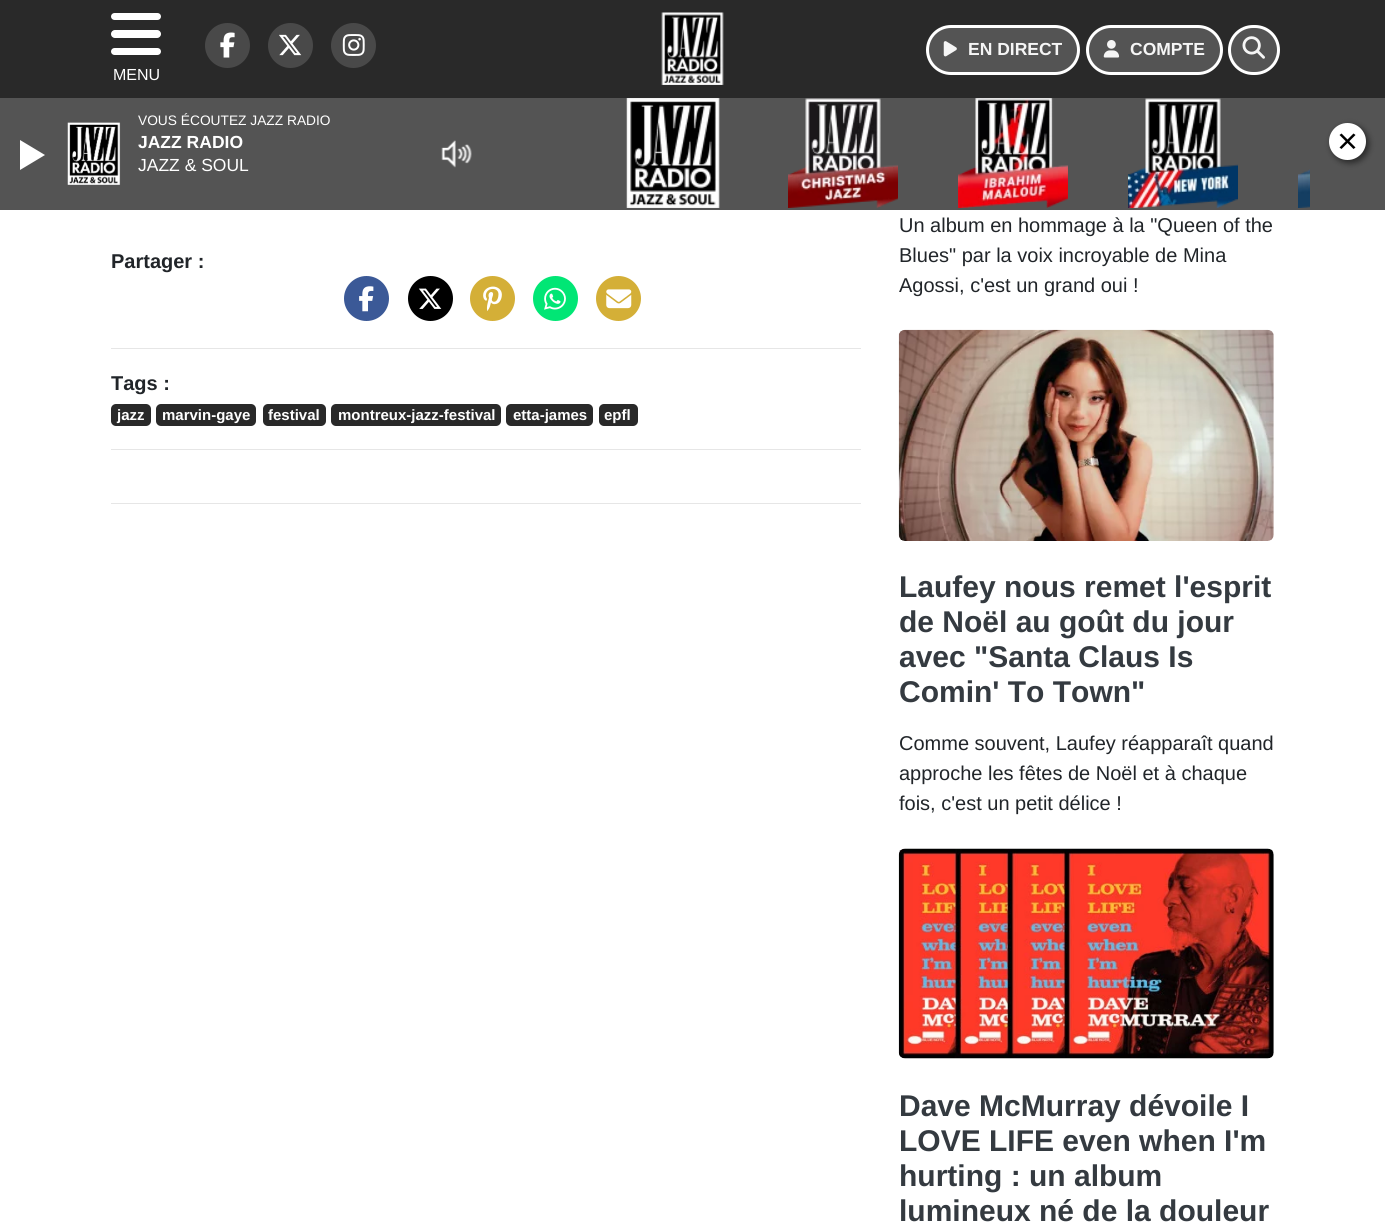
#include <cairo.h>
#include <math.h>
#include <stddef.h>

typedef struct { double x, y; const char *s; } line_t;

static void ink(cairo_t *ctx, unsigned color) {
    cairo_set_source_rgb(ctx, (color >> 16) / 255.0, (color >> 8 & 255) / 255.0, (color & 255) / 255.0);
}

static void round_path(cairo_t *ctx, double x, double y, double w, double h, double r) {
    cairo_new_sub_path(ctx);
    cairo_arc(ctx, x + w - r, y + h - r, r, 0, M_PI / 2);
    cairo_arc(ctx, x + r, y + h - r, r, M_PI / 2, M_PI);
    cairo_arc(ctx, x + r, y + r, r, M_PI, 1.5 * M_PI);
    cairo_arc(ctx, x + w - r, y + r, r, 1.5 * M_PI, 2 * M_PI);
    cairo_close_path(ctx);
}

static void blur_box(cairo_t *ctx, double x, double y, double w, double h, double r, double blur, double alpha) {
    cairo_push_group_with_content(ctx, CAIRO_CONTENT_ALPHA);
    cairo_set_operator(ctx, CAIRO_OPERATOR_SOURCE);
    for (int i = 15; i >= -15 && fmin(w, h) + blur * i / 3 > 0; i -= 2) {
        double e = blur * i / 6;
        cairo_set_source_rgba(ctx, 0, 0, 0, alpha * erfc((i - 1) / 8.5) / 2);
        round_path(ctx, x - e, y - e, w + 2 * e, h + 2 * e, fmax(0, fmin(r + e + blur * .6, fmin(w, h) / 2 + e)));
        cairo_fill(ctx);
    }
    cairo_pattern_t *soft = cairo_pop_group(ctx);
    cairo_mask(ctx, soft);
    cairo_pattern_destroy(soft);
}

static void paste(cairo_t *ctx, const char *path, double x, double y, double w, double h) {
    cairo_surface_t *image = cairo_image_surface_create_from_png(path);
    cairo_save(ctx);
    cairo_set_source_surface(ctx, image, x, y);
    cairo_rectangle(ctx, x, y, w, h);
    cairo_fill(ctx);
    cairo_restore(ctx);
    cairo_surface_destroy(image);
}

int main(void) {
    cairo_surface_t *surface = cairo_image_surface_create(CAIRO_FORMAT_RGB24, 1385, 1227);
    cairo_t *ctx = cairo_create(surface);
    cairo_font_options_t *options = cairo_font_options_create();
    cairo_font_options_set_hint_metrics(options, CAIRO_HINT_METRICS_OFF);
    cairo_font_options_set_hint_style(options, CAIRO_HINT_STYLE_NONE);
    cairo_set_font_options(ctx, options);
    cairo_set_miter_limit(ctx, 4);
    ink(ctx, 0xFFFFFF);
    cairo_paint(ctx);
    ink(ctx, 0x292929);
    cairo_rectangle(ctx, 0, 0, 1385, 98);
    cairo_fill(ctx);
    ink(ctx, 0x494949);
    cairo_arc(ctx, 227.5, 45.5, 22.5, 0, 2 * M_PI);
    cairo_fill(ctx);
    paste(ctx, "media/1.png", 220, 32, 15, 26);
    cairo_arc(ctx, 290.5, 45.5, 22.5, 0, 2 * M_PI);
    cairo_fill(ctx);
    paste(ctx, "media/2.png", 279, 34, 23, 22);
    cairo_arc(ctx, 353.5, 45.5, 22.5, 0, 2 * M_PI);
    cairo_fill(ctx);
    paste(ctx, "media/3.png", 342, 34, 23, 22);
    paste(ctx, "media/4.png", 661, 12, 63, 73);
    ink(ctx, 0x545454);
    round_path(ctx, 927.5, 26.5, 151, 47, 23.5);
    cairo_fill_preserve(ctx);
    ink(ctx, 0xFFFFFF);
    cairo_set_line_width(ctx, 3);
    cairo_stroke(ctx);
    paste(ctx, "media/5.png", 943, 41, 14, 16);
    cairo_select_font_face(ctx, "Liberation Sans", CAIRO_FONT_SLANT_NORMAL, CAIRO_FONT_WEIGHT_BOLD);
    cairo_set_font_size(ctx, 17.5);
    ink(ctx, 0xF5F5F5);
    cairo_move_to(ctx, 968, 55);
    cairo_show_text(ctx, "EN DIRECT");
    ink(ctx, 0x545454);
    round_path(ctx, 1087.5, 26.5, 134, 47, 23.5);
    cairo_fill_preserve(ctx);
    ink(ctx, 0xFFFFFF);
    cairo_stroke(ctx);
    paste(ctx, "media/6.png", 1103, 40, 17, 18);
    ink(ctx, 0xF5F5F5);
    cairo_move_to(ctx, 1130, 55);
    cairo_show_text(ctx, "COMPTE");
    ink(ctx, 0x545454);
    round_path(ctx, 1229.5, 26.5, 49, 47, 23.5);
    cairo_fill_preserve(ctx);
    ink(ctx, 0xFFFFFF);
    cairo_stroke(ctx);
    paste(ctx, "media/7.png", 1242, 36, 23, 23);
    round_path(ctx, 111, 13, 50, 7, 3.5);
    cairo_fill(ctx);
    round_path(ctx, 111, 30, 50, 8, 4);
    cairo_fill(ctx);
    round_path(ctx, 111, 48, 50, 7, 3.5);
    cairo_fill(ctx);
    cairo_select_font_face(ctx, "Liberation Sans", CAIRO_FONT_SLANT_NORMAL, CAIRO_FONT_WEIGHT_NORMAL);
    cairo_set_font_size(ctx, 16);
    cairo_move_to(ctx, 113, 80);
    cairo_show_text(ctx, "MENU");
    cairo_select_font_face(ctx, "Liberation Sans", CAIRO_FONT_SLANT_NORMAL, CAIRO_FONT_WEIGHT_BOLD);
    cairo_set_font_size(ctx, 20);
    ink(ctx, 0x212529);
    cairo_move_to(ctx, 111, 268);
    cairo_show_text(ctx, "Partager :");
    ink(ctx, 0x3B5997);
    cairo_new_path(ctx);
    cairo_arc(ctx, 366.5, 298.5, 22.5, 0, 2 * M_PI);
    cairo_fill(ctx);
    paste(ctx, "media/8.png", 359, 286, 15, 26);
    ink(ctx, 0x000000);
    cairo_arc(ctx, 430.5, 298.5, 22.5, 0, 2 * M_PI);
    cairo_fill(ctx);
    paste(ctx, "media/9.png", 418, 288, 24, 21);
    ink(ctx, 0xD4AF37);
    cairo_arc(ctx, 492.5, 298.5, 22.5, 0, 2 * M_PI);
    cairo_fill(ctx);
    paste(ctx, "media/10.png", 483, 286, 19, 25);
    ink(ctx, 0x01E675);
    cairo_arc(ctx, 555.5, 298.5, 22.5, 0, 2 * M_PI);
    cairo_fill(ctx);
    paste(ctx, "media/11.png", 544, 287, 22, 23);
    ink(ctx, 0xD4AF37);
    cairo_arc(ctx, 618.5, 298.5, 22.5, 0, 2 * M_PI);
    cairo_fill(ctx);
    paste(ctx, "media/12.png", 606, 289, 26, 20);
    ink(ctx, 0xE6E6E6);
    cairo_rectangle(ctx, 111, 348, 750, 1);
    cairo_fill(ctx);
    ink(ctx, 0x212529);
    cairo_move_to(ctx, 111, 390);
    cairo_show_text(ctx, "Tags :");
    ink(ctx, 0x292929);
    round_path(ctx, 111, 404, 40, 22, 5);
    cairo_fill(ctx);
    cairo_set_font_size(ctx, 15);
    ink(ctx, 0xFFFFFF);
    cairo_move_to(ctx, 117, 420);
    cairo_show_text(ctx, "jazz");
    ink(ctx, 0x292929);
    round_path(ctx, 156, 404, 100, 22, 5);
    cairo_fill(ctx);
    ink(ctx, 0xFFFFFF);
    cairo_move_to(ctx, 162, 420);
    cairo_show_text(ctx, "marvin-gaye");
    ink(ctx, 0x292929);
    round_path(ctx, 263, 404, 63, 22, 5);
    cairo_fill(ctx);
    ink(ctx, 0xFFFFFF);
    cairo_move_to(ctx, 268, 420);
    cairo_show_text(ctx, "festival");
    ink(ctx, 0x292929);
    round_path(ctx, 331, 404, 170, 22, 5);
    cairo_fill(ctx);
    ink(ctx, 0xFFFFFF);
    cairo_move_to(ctx, 338, 420);
    cairo_show_text(ctx, "montreux-jazz-festival");
    ink(ctx, 0x292929);
    round_path(ctx, 506, 404, 87, 22, 5);
    cairo_fill(ctx);
    ink(ctx, 0xFFFFFF);
    cairo_move_to(ctx, 513, 420);
    cairo_show_text(ctx, "etta-james");
    ink(ctx, 0x292929);
    round_path(ctx, 599, 404, 39, 22, 5);
    cairo_fill(ctx);
    ink(ctx, 0xFFFFFF);
    cairo_move_to(ctx, 604, 420);
    cairo_show_text(ctx, "epfl");
    ink(ctx, 0xE6E6E6);
    cairo_rectangle(ctx, 111, 449, 750, 1);
    cairo_fill(ctx);
    cairo_rectangle(ctx, 111, 503, 750, 1);
    cairo_fill(ctx);
    cairo_select_font_face(ctx, "Liberation Sans", CAIRO_FONT_SLANT_NORMAL, CAIRO_FONT_WEIGHT_NORMAL);
    cairo_set_font_size(ctx, 20);
    ink(ctx, 0x212529);
    {
        static const line_t items[] = {
            {899, 232, "Un album en hommage à la \"Queen of the"},
            {899, 262, "Blues\" par la voix incroyable de Mina"},
            {899, 292, "Agossi, c'est un grand oui !"},
        };
        for (size_t i = 0; i < sizeof items / sizeof *items; i++) {
            cairo_move_to(ctx, items[i].x, items[i].y);
            cairo_show_text(ctx, items[i].s);
        }
    }
    paste(ctx, "media/13.png", 898, 329, 376, 212);
    cairo_select_font_face(ctx, "Liberation Sans", CAIRO_FONT_SLANT_NORMAL, CAIRO_FONT_WEIGHT_BOLD);
    cairo_set_font_size(ctx, 30);
    ink(ctx, 0x343A40);
    {
        static const line_t items[] = {
            {899, 597, "Laufey nous remet l'esprit"},
            {899, 632, "de Noël au goût du jour"},
            {899, 667, "avec \"Santa Claus Is"},
            {899, 702, "Comin' To Town\""},
        };
        for (size_t i = 0; i < sizeof items / sizeof *items; i++) {
            cairo_move_to(ctx, items[i].x, items[i].y);
            cairo_show_text(ctx, items[i].s);
        }
    }
    cairo_select_font_face(ctx, "Liberation Sans", CAIRO_FONT_SLANT_NORMAL, CAIRO_FONT_WEIGHT_NORMAL);
    cairo_set_font_size(ctx, 20);
    ink(ctx, 0x212529);
    {
        static const line_t items[] = {
            {899, 750, "Comme souvent, Laufey réapparaît quand"},
            {899, 780, "approche les fêtes de Noël et à chaque"},
            {899, 810, "fois, c'est un petit délice !"},
        };
        for (size_t i = 0; i < sizeof items / sizeof *items; i++) {
            cairo_move_to(ctx, items[i].x, items[i].y);
            cairo_show_text(ctx, items[i].s);
        }
    }
    paste(ctx, "media/14.png", 898, 848, 376, 211);
    cairo_select_font_face(ctx, "Liberation Sans", CAIRO_FONT_SLANT_NORMAL, CAIRO_FONT_WEIGHT_BOLD);
    cairo_set_font_size(ctx, 30);
    ink(ctx, 0x343A40);
    {
        static const line_t items[] = {
            {899, 1116, "Dave McMurray dévoile I"},
            {899, 1151, "LOVE LIFE even when I'm"},
            {899, 1186, "hurting : un album"},
            {899, 1221, "lumineux né de la douleur"},
        };
        for (size_t i = 0; i < sizeof items / sizeof *items; i++) {
            cairo_move_to(ctx, items[i].x, items[i].y);
            cairo_show_text(ctx, items[i].s);
        }
    }
    ink(ctx, 0x545454);
    cairo_rectangle(ctx, 0, 98, 1385, 112);
    cairo_fill(ctx);
    cairo_select_font_face(ctx, "Liberation Sans", CAIRO_FONT_SLANT_NORMAL, CAIRO_FONT_WEIGHT_NORMAL);
    cairo_set_font_size(ctx, 13.75);
    ink(ctx, 0xFFFFFF);
    cairo_move_to(ctx, 138, 125);
    cairo_show_text(ctx, "VOUS ÉCOUTEZ JAZZ RADIO");
    paste(ctx, "media/15.png", 67, 122, 54, 63);
    cairo_select_font_face(ctx, "Liberation Sans", CAIRO_FONT_SLANT_NORMAL, CAIRO_FONT_WEIGHT_BOLD);
    cairo_set_font_size(ctx, 17.5);
    cairo_move_to(ctx, 138, 148);
    cairo_show_text(ctx, "JAZZ RADIO");
    cairo_select_font_face(ctx, "Liberation Sans", CAIRO_FONT_SLANT_NORMAL, CAIRO_FONT_WEIGHT_NORMAL);
    cairo_move_to(ctx, 138, 171);
    cairo_show_text(ctx, "JAZZ & SOUL");
    cairo_new_path(ctx);
    cairo_move_to(ctx, 20, 170);
    cairo_line_to(ctx, 20, 140);
    cairo_line_to(ctx, 45, 155);
    cairo_close_path(ctx);
    cairo_fill(ctx);
    paste(ctx, "media/16.png", 441, 140, 31, 28);
    paste(ctx, "media/17.png", 626, 98, 94, 110);
    paste(ctx, "media/18.png", 788, 98, 110, 110);
    paste(ctx, "media/19.png", 958, 98, 110, 110);
    paste(ctx, "media/20.png", 1128, 98, 110, 110);
    paste(ctx, "media/21.png", 1298, 169, 12, 39);
    ink(ctx, 0x000000);
    blur_box(ctx, 1331, 125, 38, 38, 19, 3, 0.5);
    ink(ctx, 0xFFFFFF);
    cairo_arc(ctx, 1347.5, 141.5, 18.5, 0, 2 * M_PI);
    cairo_fill(ctx);
    ink(ctx, 0x000000);
    cairo_new_path(ctx);
    cairo_move_to(ctx, 1341.5, 133.5);
    cairo_line_to(ctx, 1355.5, 147.5);
    cairo_line_to(ctx, 1353.5, 149);
    cairo_line_to(ctx, 1339.5, 135);
    cairo_close_path(ctx);
    cairo_fill(ctx);
    cairo_new_path(ctx);
    cairo_move_to(ctx, 1339.5, 147.5);
    cairo_line_to(ctx, 1353.5, 133.5);
    cairo_line_to(ctx, 1355.5, 135);
    cairo_line_to(ctx, 1341.5, 149);
    cairo_close_path(ctx);
    cairo_fill(ctx);
    cairo_surface_write_to_png(surface, "image.png");
    cairo_font_options_destroy(options);
    cairo_destroy(ctx);
    cairo_surface_destroy(surface);
    return 0;
}
